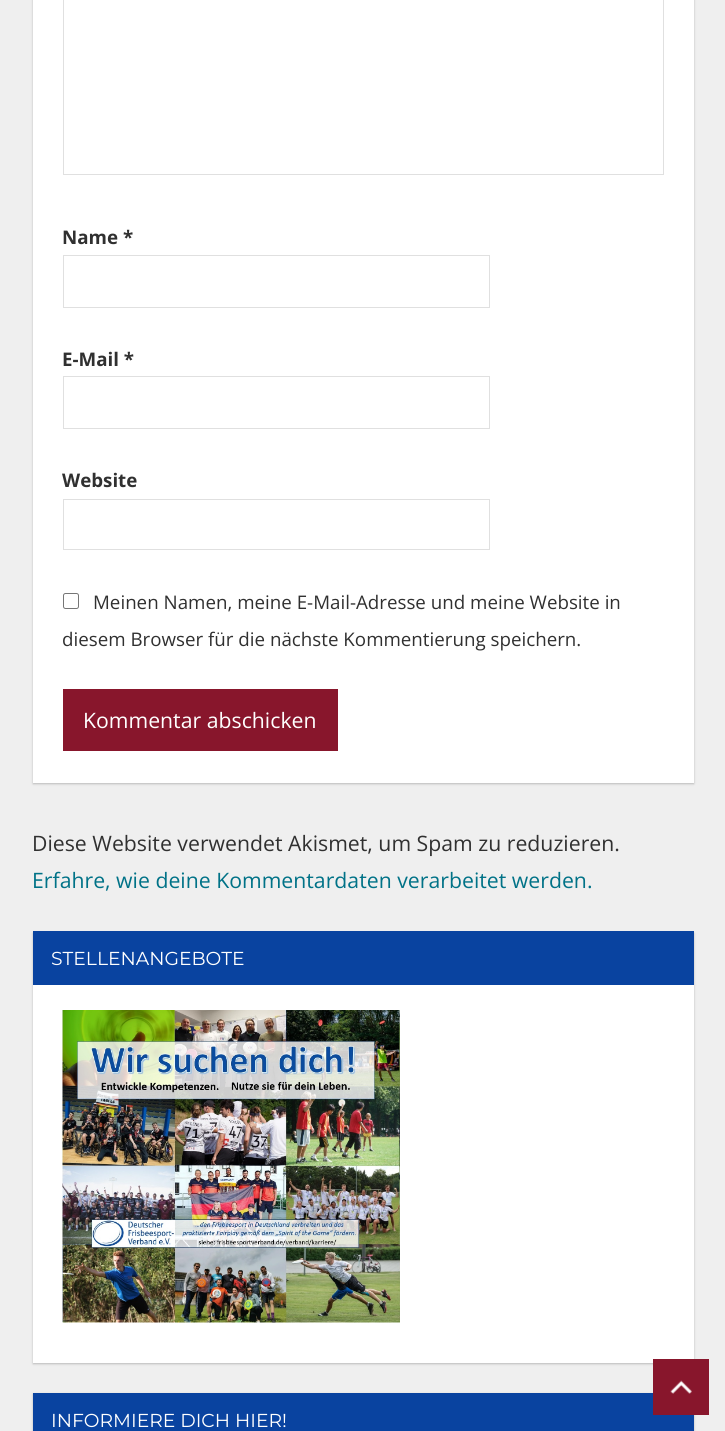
#include <cairo.h>
#include <math.h>
#include <stddef.h>


static void ink(cairo_t *ctx, unsigned color) {
    cairo_set_source_rgb(ctx, (color >> 16) / 255.0, (color >> 8 & 255) / 255.0, (color & 255) / 255.0);
}

static void round_path(cairo_t *ctx, double x, double y, double w, double h, double r) {
    cairo_new_sub_path(ctx);
    cairo_arc(ctx, x + w - r, y + h - r, r, 0, M_PI / 2);
    cairo_arc(ctx, x + r, y + h - r, r, M_PI / 2, M_PI);
    cairo_arc(ctx, x + r, y + r, r, M_PI, 1.5 * M_PI);
    cairo_arc(ctx, x + w - r, y + r, r, 1.5 * M_PI, 2 * M_PI);
    cairo_close_path(ctx);
}

static void blur_box(cairo_t *ctx, double x, double y, double w, double h, double r, double blur, double alpha) {
    cairo_push_group_with_content(ctx, CAIRO_CONTENT_ALPHA);
    cairo_set_operator(ctx, CAIRO_OPERATOR_SOURCE);
    for (int i = 15; i >= -15 && fmin(w, h) + blur * i / 3 > 0; i -= 2) {
        double e = blur * i / 6;
        cairo_set_source_rgba(ctx, 0, 0, 0, alpha * erfc((i - 1) / 8.5) / 2);
        round_path(ctx, x - e, y - e, w + 2 * e, h + 2 * e, fmax(0, fmin(r + e + blur * .6, fmin(w, h) / 2 + e)));
        cairo_fill(ctx);
    }
    cairo_pattern_t *soft = cairo_pop_group(ctx);
    cairo_mask(ctx, soft);
    cairo_pattern_destroy(soft);
}

static void paste(cairo_t *ctx, const char *path, double x, double y, double w, double h) {
    cairo_surface_t *image = cairo_image_surface_create_from_png(path);
    cairo_save(ctx);
    cairo_set_source_surface(ctx, image, x, y);
    cairo_rectangle(ctx, x, y, w, h);
    cairo_fill(ctx);
    cairo_restore(ctx);
    cairo_surface_destroy(image);
}

int main(void) {
    cairo_surface_t *surface = cairo_image_surface_create(CAIRO_FORMAT_RGB24, 725, 1431);
    cairo_t *ctx = cairo_create(surface);
    cairo_font_options_t *options = cairo_font_options_create();
    cairo_font_options_set_hint_metrics(options, CAIRO_HINT_METRICS_OFF);
    cairo_font_options_set_hint_style(options, CAIRO_HINT_STYLE_NONE);
    cairo_set_font_options(ctx, options);
    cairo_set_miter_limit(ctx, 4);
    ink(ctx, 0xEFEFEF);
    cairo_paint(ctx);
    ink(ctx, 0xBBBBBB);
    blur_box(ctx, 33, -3, 661, 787, 0, 1, 1);
    ink(ctx, 0xFFFFFF);
    cairo_rectangle(ctx, 33, 0, 661, 783);
    cairo_fill(ctx);
    cairo_rectangle(ctx, 63.5, -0.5, 600, 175);
    ink(ctx, 0xE0E0E0);
    cairo_set_line_width(ctx, 1);
    cairo_stroke(ctx);
    cairo_select_font_face(ctx, "Open Sans", CAIRO_FONT_SLANT_NORMAL, CAIRO_FONT_WEIGHT_BOLD);
    cairo_set_font_size(ctx, 18.75);
    ink(ctx, 0x303030);
    cairo_move_to(ctx, 62, 244);
    cairo_show_text(ctx, "Name *");
    cairo_rectangle(ctx, 63.5, 255.5, 426, 52);
    ink(ctx, 0xE0E0E0);
    cairo_stroke(ctx);
    ink(ctx, 0x303030);
    cairo_move_to(ctx, 62, 366);
    cairo_show_text(ctx, "E-Mail *");
    cairo_rectangle(ctx, 63.5, 376.5, 426, 52);
    ink(ctx, 0xE0E0E0);
    cairo_stroke(ctx);
    ink(ctx, 0x303030);
    cairo_move_to(ctx, 62, 487);
    cairo_show_text(ctx, "Website");
    cairo_rectangle(ctx, 63.5, 499.5, 426, 50);
    ink(ctx, 0xE0E0E0);
    cairo_stroke(ctx);
    round_path(ctx, 63.5, 593.5, 15, 15, 2);
    ink(ctx, 0x767676);
    cairo_stroke(ctx);
    cairo_select_font_face(ctx, "Open Sans", CAIRO_FONT_SLANT_NORMAL, CAIRO_FONT_WEIGHT_NORMAL);
    ink(ctx, 0x303030);
    cairo_move_to(ctx, 93, 609);
    cairo_show_text(ctx, "Meinen Namen, meine E-Mail-Adresse und meine Website in");
    cairo_move_to(ctx, 62, 646);
    cairo_show_text(ctx, "diesem Browser für die nächste Kommentierung speichern.");
    ink(ctx, 0x88162C);
    cairo_rectangle(ctx, 63, 689, 275, 62);
    cairo_fill(ctx);
    cairo_set_font_size(ctx, 21.25);
    ink(ctx, 0xFFFFFF);
    cairo_move_to(ctx, 83, 728);
    cairo_show_text(ctx, "Kommentar abschicken");
    ink(ctx, 0x303030);
    cairo_move_to(ctx, 32, 851);
    cairo_show_text(ctx, "Diese Website verwendet Akismet, um Spam zu reduzieren.");
    ink(ctx, 0x007287);
    cairo_move_to(ctx, 32, 888);
    cairo_show_text(ctx, "Erfahre, wie deine Kommentardaten verarbeitet werden.");
    ink(ctx, 0xBBBBBB);
    blur_box(ctx, 33, 933, 661, 431, 0, 1, 1);
    ink(ctx, 0xFFFFFF);
    cairo_rectangle(ctx, 33, 985, 661, 378);
    cairo_fill(ctx);
    ink(ctx, 0x0943A0);
    cairo_rectangle(ctx, 33, 931, 661, 54);
    cairo_fill(ctx);
    cairo_select_font_face(ctx, "Montserrat Thin", CAIRO_FONT_SLANT_NORMAL, CAIRO_FONT_WEIGHT_NORMAL);
    cairo_set_font_size(ctx, 18.75);
    ink(ctx, 0xFFFFFF);
    cairo_move_to(ctx, 51, 965);
    cairo_show_text(ctx, "STELLENANGEBOTE");
    paste(ctx, "media/1.png", 62, 1010, 338, 313);
    ink(ctx, 0xBBBBBB);
    blur_box(ctx, 33, 1394, 661, 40, 0, 1, 1);
    ink(ctx, 0x0943A0);
    cairo_rectangle(ctx, 33, 1393, 661, 38);
    cairo_fill(ctx);
    ink(ctx, 0xFFFFFF);
    cairo_move_to(ctx, 51, 1427);
    cairo_show_text(ctx, "INFORMIERE DICH HIER!");
    ink(ctx, 0x88162C);
    cairo_rectangle(ctx, 653, 1359, 56, 56);
    cairo_fill(ctx);
    paste(ctx, "media/2.png", 670, 1380, 22, 14);
    cairo_surface_write_to_png(surface, "image.png");
    cairo_font_options_destroy(options);
    cairo_destroy(ctx);
    cairo_surface_destroy(surface);
    return 0;
}
